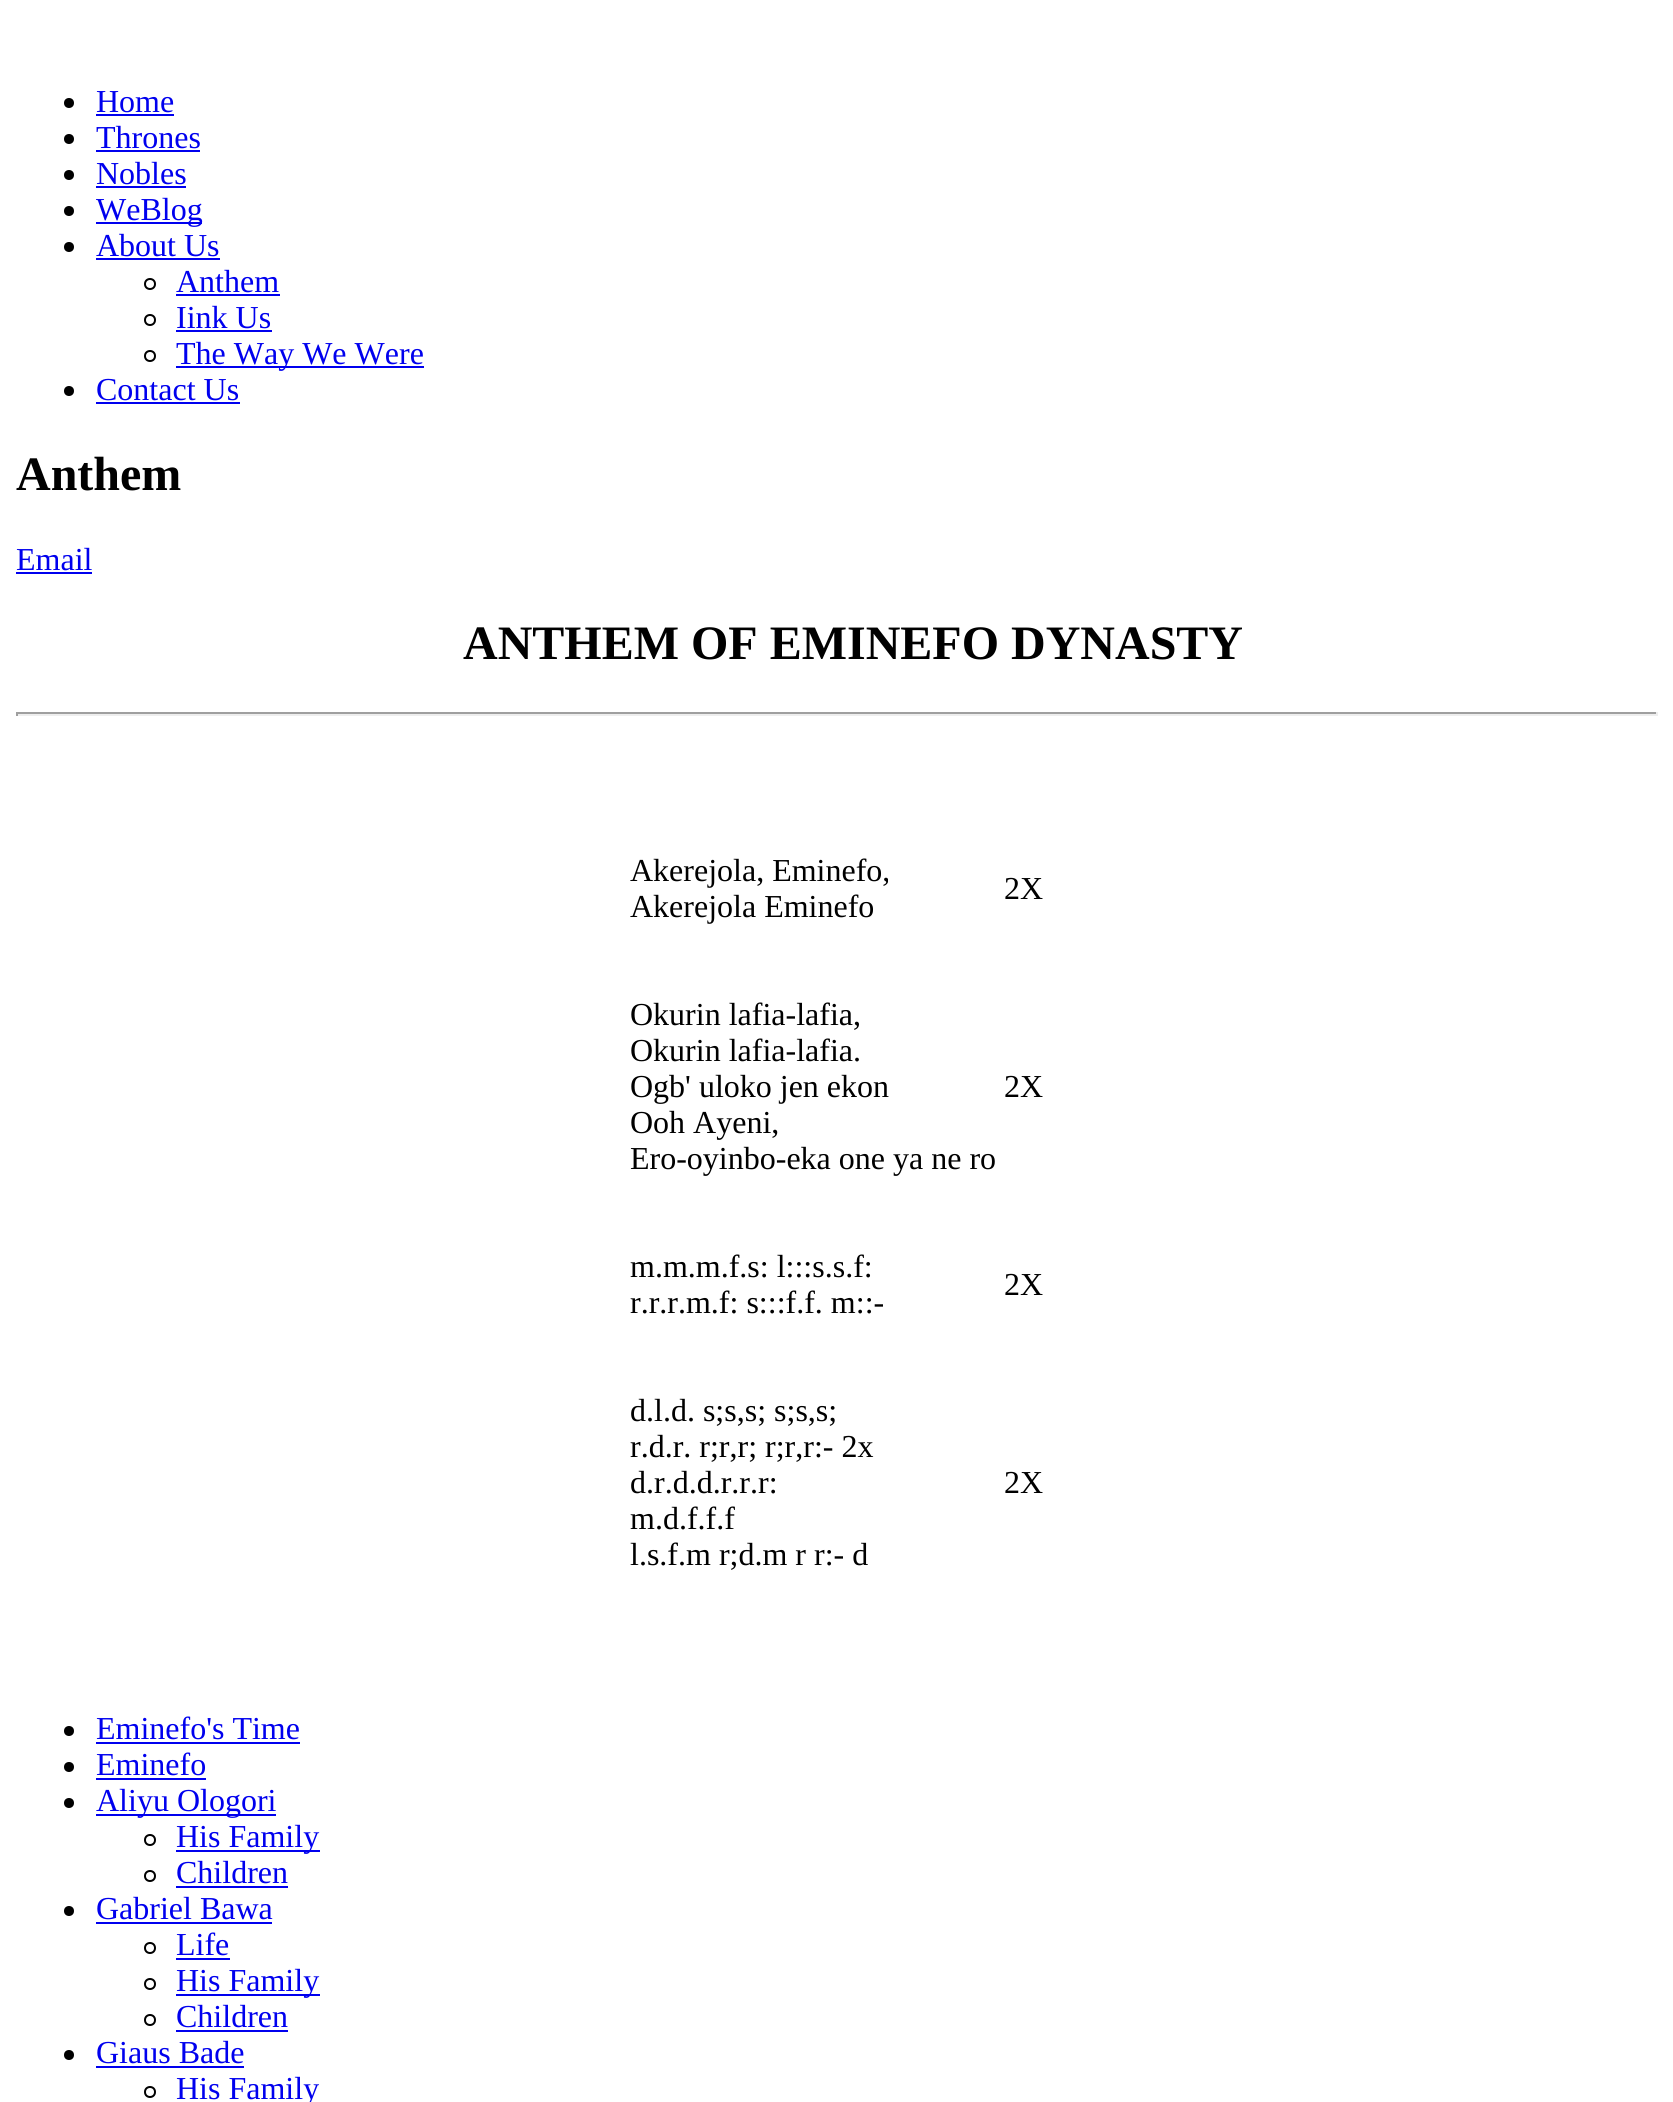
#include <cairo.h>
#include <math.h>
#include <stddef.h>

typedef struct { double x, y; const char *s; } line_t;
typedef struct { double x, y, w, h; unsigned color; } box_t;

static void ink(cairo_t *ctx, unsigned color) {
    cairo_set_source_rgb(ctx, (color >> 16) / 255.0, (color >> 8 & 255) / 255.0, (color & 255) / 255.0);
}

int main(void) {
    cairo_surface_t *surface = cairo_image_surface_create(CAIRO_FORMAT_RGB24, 1673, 2102);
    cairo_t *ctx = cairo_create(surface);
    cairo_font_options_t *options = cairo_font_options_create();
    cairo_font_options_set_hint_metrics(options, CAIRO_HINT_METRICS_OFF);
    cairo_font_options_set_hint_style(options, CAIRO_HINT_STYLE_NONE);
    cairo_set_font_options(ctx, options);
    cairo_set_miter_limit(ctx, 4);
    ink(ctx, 0xFFFFFF);
    cairo_paint(ctx);
    ink(ctx, 0x000000);
    cairo_arc(ctx, 69, 103, 5, 0, 2 * M_PI);
    cairo_fill(ctx);
    cairo_select_font_face(ctx, "Liberation Serif", CAIRO_FONT_SLANT_NORMAL, CAIRO_FONT_WEIGHT_NORMAL);
    cairo_set_font_size(ctx, 32);
    ink(ctx, 0x0000EE);
    cairo_move_to(ctx, 96, 112);
    cairo_show_text(ctx, "Home");
    cairo_rectangle(ctx, 96, 114, 78, 2);
    cairo_fill(ctx);
    ink(ctx, 0x000000);
    cairo_arc(ctx, 69, 139, 5, 0, 2 * M_PI);
    cairo_fill(ctx);
    ink(ctx, 0x0000EE);
    cairo_move_to(ctx, 96, 148);
    cairo_show_text(ctx, "Thrones");
    cairo_rectangle(ctx, 96, 150, 104, 2);
    cairo_fill(ctx);
    ink(ctx, 0x000000);
    cairo_arc(ctx, 69, 175, 5, 0, 2 * M_PI);
    cairo_fill(ctx);
    ink(ctx, 0x0000EE);
    cairo_move_to(ctx, 96, 184);
    cairo_show_text(ctx, "Nobles");
    cairo_rectangle(ctx, 96, 186, 90, 2);
    cairo_fill(ctx);
    ink(ctx, 0x000000);
    cairo_arc(ctx, 69, 211, 5, 0, 2 * M_PI);
    cairo_fill(ctx);
    ink(ctx, 0x0000EE);
    cairo_rectangle(ctx, 96, 222, 106, 2);
    cairo_fill(ctx);
    cairo_move_to(ctx, 96, 220);
    cairo_show_text(ctx, "WeBlog");
    ink(ctx, 0x000000);
    cairo_new_path(ctx);
    cairo_arc(ctx, 69, 247, 5, 0, 2 * M_PI);
    cairo_fill(ctx);
    ink(ctx, 0x0000EE);
    cairo_move_to(ctx, 96, 256);
    cairo_show_text(ctx, "About Us");
    cairo_rectangle(ctx, 96, 258, 124, 2);
    cairo_fill(ctx);
    cairo_arc(ctx, 150, 284, 5, 0, 2 * M_PI);
    ink(ctx, 0x000000);
    cairo_stroke(ctx);
    ink(ctx, 0x0000EE);
    cairo_move_to(ctx, 176, 292);
    cairo_show_text(ctx, "Anthem");
    cairo_rectangle(ctx, 176, 294, 104, 2);
    cairo_fill(ctx);
    cairo_arc(ctx, 150, 320, 5, 0, 2 * M_PI);
    ink(ctx, 0x000000);
    cairo_stroke(ctx);
    ink(ctx, 0x0000EE);
    cairo_move_to(ctx, 176, 328);
    cairo_show_text(ctx, "Iink Us");
    cairo_rectangle(ctx, 176, 330, 96, 2);
    cairo_fill(ctx);
    cairo_arc(ctx, 150, 356, 5, 0, 2 * M_PI);
    ink(ctx, 0x000000);
    cairo_stroke(ctx);
    ink(ctx, 0x0000EE);
    cairo_rectangle(ctx, 176, 366, 248, 2);
    cairo_fill(ctx);
    cairo_move_to(ctx, 176, 364);
    cairo_show_text(ctx, "The Way We Were");
    ink(ctx, 0x000000);
    cairo_new_path(ctx);
    cairo_arc(ctx, 69, 391, 5, 0, 2 * M_PI);
    cairo_fill(ctx);
    ink(ctx, 0x0000EE);
    cairo_move_to(ctx, 96, 400);
    cairo_show_text(ctx, "Contact Us");
    cairo_rectangle(ctx, 96, 402, 144, 2);
    cairo_fill(ctx);
    cairo_select_font_face(ctx, "Liberation Serif", CAIRO_FONT_SLANT_NORMAL, CAIRO_FONT_WEIGHT_BOLD);
    cairo_set_font_size(ctx, 48);
    ink(ctx, 0x000000);
    cairo_move_to(ctx, 16, 490);
    cairo_show_text(ctx, "Anthem");
    cairo_select_font_face(ctx, "Liberation Serif", CAIRO_FONT_SLANT_NORMAL, CAIRO_FONT_WEIGHT_NORMAL);
    cairo_set_font_size(ctx, 32);
    ink(ctx, 0x0000EE);
    cairo_move_to(ctx, 16, 570);
    cairo_show_text(ctx, "Email");
    cairo_rectangle(ctx, 16, 572, 76, 2);
    cairo_fill(ctx);
    cairo_select_font_face(ctx, "Liberation Serif", CAIRO_FONT_SLANT_NORMAL, CAIRO_FONT_WEIGHT_BOLD);
    cairo_set_font_size(ctx, 48);
    ink(ctx, 0x000000);
    cairo_move_to(ctx, 463, 659);
    cairo_show_text(ctx, "ANTHEM OF EMINEFO DYNASTY");
    {
        static const box_t items[] = {
            {16, 712, 1642, 2, 0x9F9F9F},
            {1656, 712, 2, 4, 0xEEEEEE},
            {16, 714, 1642, 2, 0xEEEEEE},
            {16, 712, 2, 4, 0x9F9F9F},
        };
        for (size_t i = 0; i < sizeof items / sizeof *items; i++) {
            ink(ctx, items[i].color);
            cairo_rectangle(ctx, items[i].x, items[i].y, items[i].w, items[i].h);
            cairo_fill(ctx);
        }
    }
    cairo_select_font_face(ctx, "Liberation Serif", CAIRO_FONT_SLANT_NORMAL, CAIRO_FONT_WEIGHT_NORMAL);
    cairo_set_font_size(ctx, 32);
    ink(ctx, 0x000000);
    {
        static const line_t items[] = {
            {630, 881, "Akerejola, Eminefo,"},
            {630, 917, "Akerejola Eminefo"},
            {1004, 899, "2X"},
            {630, 1025, "Okurin lafia-lafia,"},
            {630, 1061, "Okurin lafia-lafia."},
            {630, 1097, "Ogb' uloko jen ekon"},
            {630, 1133, "Ooh Ayeni,"},
            {630, 1169, "Ero-oyinbo-eka one ya ne ro"},
            {1004, 1097, "2X"},
            {630, 1277, "m.m.m.f.s: l:::s.s.f:"},
            {630, 1313, "r.r.r.m.f: s:::f.f. m::-"},
            {1004, 1295, "2X"},
            {630, 1421, "d.l.d. s;s,s; s;s,s;"},
            {630, 1457, "r.d.r. r;r,r; r;r,r:- 2x"},
            {630, 1493, "d.r.d.d.r.r.r:"},
            {630, 1529, "m.d.f.f.f"},
            {630, 1565, "l.s.f.m r;d.m r r:- d"},
            {1004, 1493, "2X"},
        };
        for (size_t i = 0; i < sizeof items / sizeof *items; i++) {
            cairo_move_to(ctx, items[i].x, items[i].y);
            cairo_show_text(ctx, items[i].s);
        }
    }
    cairo_new_path(ctx);
    cairo_arc(ctx, 69, 1731, 5, 0, 2 * M_PI);
    cairo_fill(ctx);
    ink(ctx, 0x0000EE);
    cairo_move_to(ctx, 96, 1739);
    cairo_show_text(ctx, "Eminefo's Time");
    cairo_rectangle(ctx, 96, 1742, 204, 2);
    cairo_fill(ctx);
    ink(ctx, 0x000000);
    cairo_arc(ctx, 69, 1767, 5, 0, 2 * M_PI);
    cairo_fill(ctx);
    ink(ctx, 0x0000EE);
    cairo_move_to(ctx, 96, 1775);
    cairo_show_text(ctx, "Eminefo");
    cairo_rectangle(ctx, 96, 1778, 110, 2);
    cairo_fill(ctx);
    ink(ctx, 0x000000);
    cairo_arc(ctx, 69, 1803, 5, 0, 2 * M_PI);
    cairo_fill(ctx);
    ink(ctx, 0x0000EE);
    cairo_rectangle(ctx, 96, 1814, 180, 2);
    cairo_fill(ctx);
    cairo_move_to(ctx, 96, 1811);
    cairo_show_text(ctx, "Aliyu Ologori");
    cairo_new_path(ctx);
    cairo_arc(ctx, 150, 1840, 5, 0, 2 * M_PI);
    ink(ctx, 0x000000);
    cairo_stroke(ctx);
    ink(ctx, 0x0000EE);
    cairo_rectangle(ctx, 176, 1850, 144, 2);
    cairo_fill(ctx);
    cairo_move_to(ctx, 176, 1847);
    cairo_show_text(ctx, "His Family");
    cairo_new_path(ctx);
    cairo_arc(ctx, 150, 1876, 5, 0, 2 * M_PI);
    ink(ctx, 0x000000);
    cairo_stroke(ctx);
    ink(ctx, 0x0000EE);
    cairo_move_to(ctx, 176, 1883);
    cairo_show_text(ctx, "Children");
    cairo_rectangle(ctx, 176, 1886, 112, 2);
    cairo_fill(ctx);
    ink(ctx, 0x000000);
    cairo_arc(ctx, 69, 1911, 5, 0, 2 * M_PI);
    cairo_fill(ctx);
    ink(ctx, 0x0000EE);
    cairo_move_to(ctx, 96, 1919);
    cairo_show_text(ctx, "Gabriel Bawa");
    cairo_rectangle(ctx, 96, 1922, 176, 2);
    cairo_fill(ctx);
    cairo_arc(ctx, 150, 1948, 5, 0, 2 * M_PI);
    ink(ctx, 0x000000);
    cairo_stroke(ctx);
    ink(ctx, 0x0000EE);
    cairo_move_to(ctx, 176, 1955);
    cairo_show_text(ctx, "Life");
    cairo_rectangle(ctx, 176, 1958, 54, 2);
    cairo_fill(ctx);
    cairo_arc(ctx, 150, 1984, 5, 0, 2 * M_PI);
    ink(ctx, 0x000000);
    cairo_stroke(ctx);
    ink(ctx, 0x0000EE);
    cairo_rectangle(ctx, 176, 1994, 144, 2);
    cairo_fill(ctx);
    cairo_move_to(ctx, 176, 1991);
    cairo_show_text(ctx, "His Family");
    cairo_new_path(ctx);
    cairo_arc(ctx, 150, 2020, 5, 0, 2 * M_PI);
    ink(ctx, 0x000000);
    cairo_stroke(ctx);
    ink(ctx, 0x0000EE);
    cairo_move_to(ctx, 176, 2027);
    cairo_show_text(ctx, "Children");
    cairo_rectangle(ctx, 176, 2030, 112, 2);
    cairo_fill(ctx);
    ink(ctx, 0x000000);
    cairo_arc(ctx, 69, 2055, 5, 0, 2 * M_PI);
    cairo_fill(ctx);
    ink(ctx, 0x0000EE);
    cairo_move_to(ctx, 96, 2063);
    cairo_show_text(ctx, "Giaus Bade");
    cairo_rectangle(ctx, 96, 2066, 148, 2);
    cairo_fill(ctx);
    cairo_arc(ctx, 150, 2092, 5, 0, 2 * M_PI);
    ink(ctx, 0x000000);
    cairo_stroke(ctx);
    ink(ctx, 0x0000EE);
    cairo_move_to(ctx, 176, 2099);
    cairo_show_text(ctx, "His Family");
    cairo_surface_write_to_png(surface, "image.png");
    cairo_font_options_destroy(options);
    cairo_destroy(ctx);
    cairo_surface_destroy(surface);
    return 0;
}
